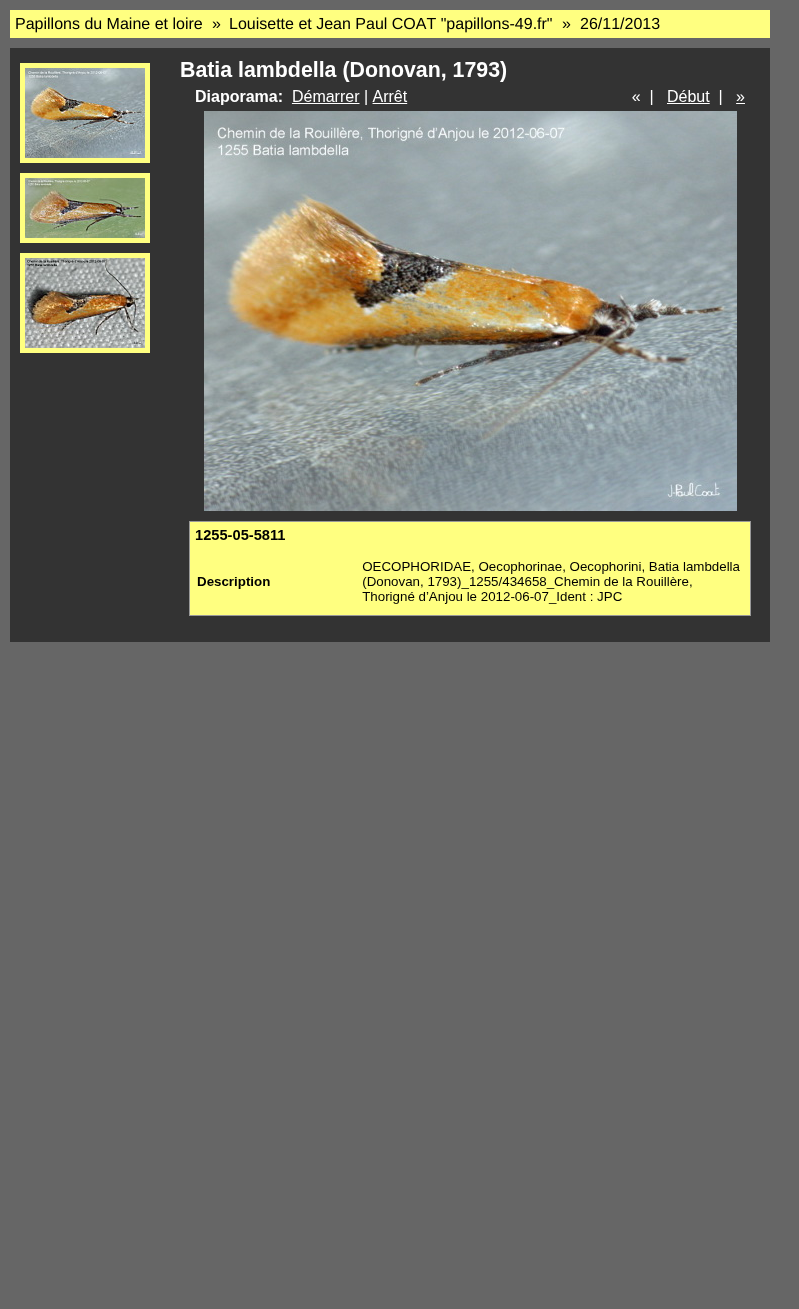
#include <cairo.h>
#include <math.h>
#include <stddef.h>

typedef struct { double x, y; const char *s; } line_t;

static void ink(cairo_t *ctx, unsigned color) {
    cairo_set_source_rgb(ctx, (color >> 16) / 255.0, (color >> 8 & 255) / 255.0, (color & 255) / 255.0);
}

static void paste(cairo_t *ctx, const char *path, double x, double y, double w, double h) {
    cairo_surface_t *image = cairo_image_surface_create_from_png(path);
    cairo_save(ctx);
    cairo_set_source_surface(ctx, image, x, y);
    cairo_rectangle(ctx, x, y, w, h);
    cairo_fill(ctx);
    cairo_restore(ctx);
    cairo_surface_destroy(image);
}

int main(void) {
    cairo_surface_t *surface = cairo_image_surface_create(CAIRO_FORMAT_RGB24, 799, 1309);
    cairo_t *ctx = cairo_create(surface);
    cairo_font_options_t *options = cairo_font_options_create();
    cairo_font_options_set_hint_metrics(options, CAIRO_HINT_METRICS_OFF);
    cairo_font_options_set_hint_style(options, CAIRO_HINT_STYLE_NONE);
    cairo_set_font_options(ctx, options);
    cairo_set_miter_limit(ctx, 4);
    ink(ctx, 0x666666);
    cairo_paint(ctx);
    ink(ctx, 0xFFFF80);
    cairo_rectangle(ctx, 10, 10, 760, 28);
    cairo_fill(ctx);
    cairo_select_font_face(ctx, "Liberation Sans", CAIRO_FONT_SLANT_NORMAL, CAIRO_FONT_WEIGHT_NORMAL);
    cairo_set_font_size(ctx, 16);
    ink(ctx, 0x000000);
    {
        static const line_t items[] = {
            {15, 29, "Papillons du Maine et loire"},
            {212, 29, "»"},
            {229, 29, "Louisette et Jean Paul COAT \"papillons-49.fr\""},
            {562, 29, "»"},
            {580, 29, "26/11/2013"},
        };
        for (size_t i = 0; i < sizeof items / sizeof *items; i++) {
            cairo_move_to(ctx, items[i].x, items[i].y);
            cairo_show_text(ctx, items[i].s);
        }
    }
    ink(ctx, 0x333333);
    cairo_rectangle(ctx, 10, 48, 760, 594);
    cairo_fill(ctx);
    paste(ctx, "media/1.png", 20, 63, 130, 290);
    paste(ctx, "media/2.png", 181, 61, 570, 555);
    cairo_surface_write_to_png(surface, "image.png");
    cairo_font_options_destroy(options);
    cairo_destroy(ctx);
    cairo_surface_destroy(surface);
    return 0;
}
